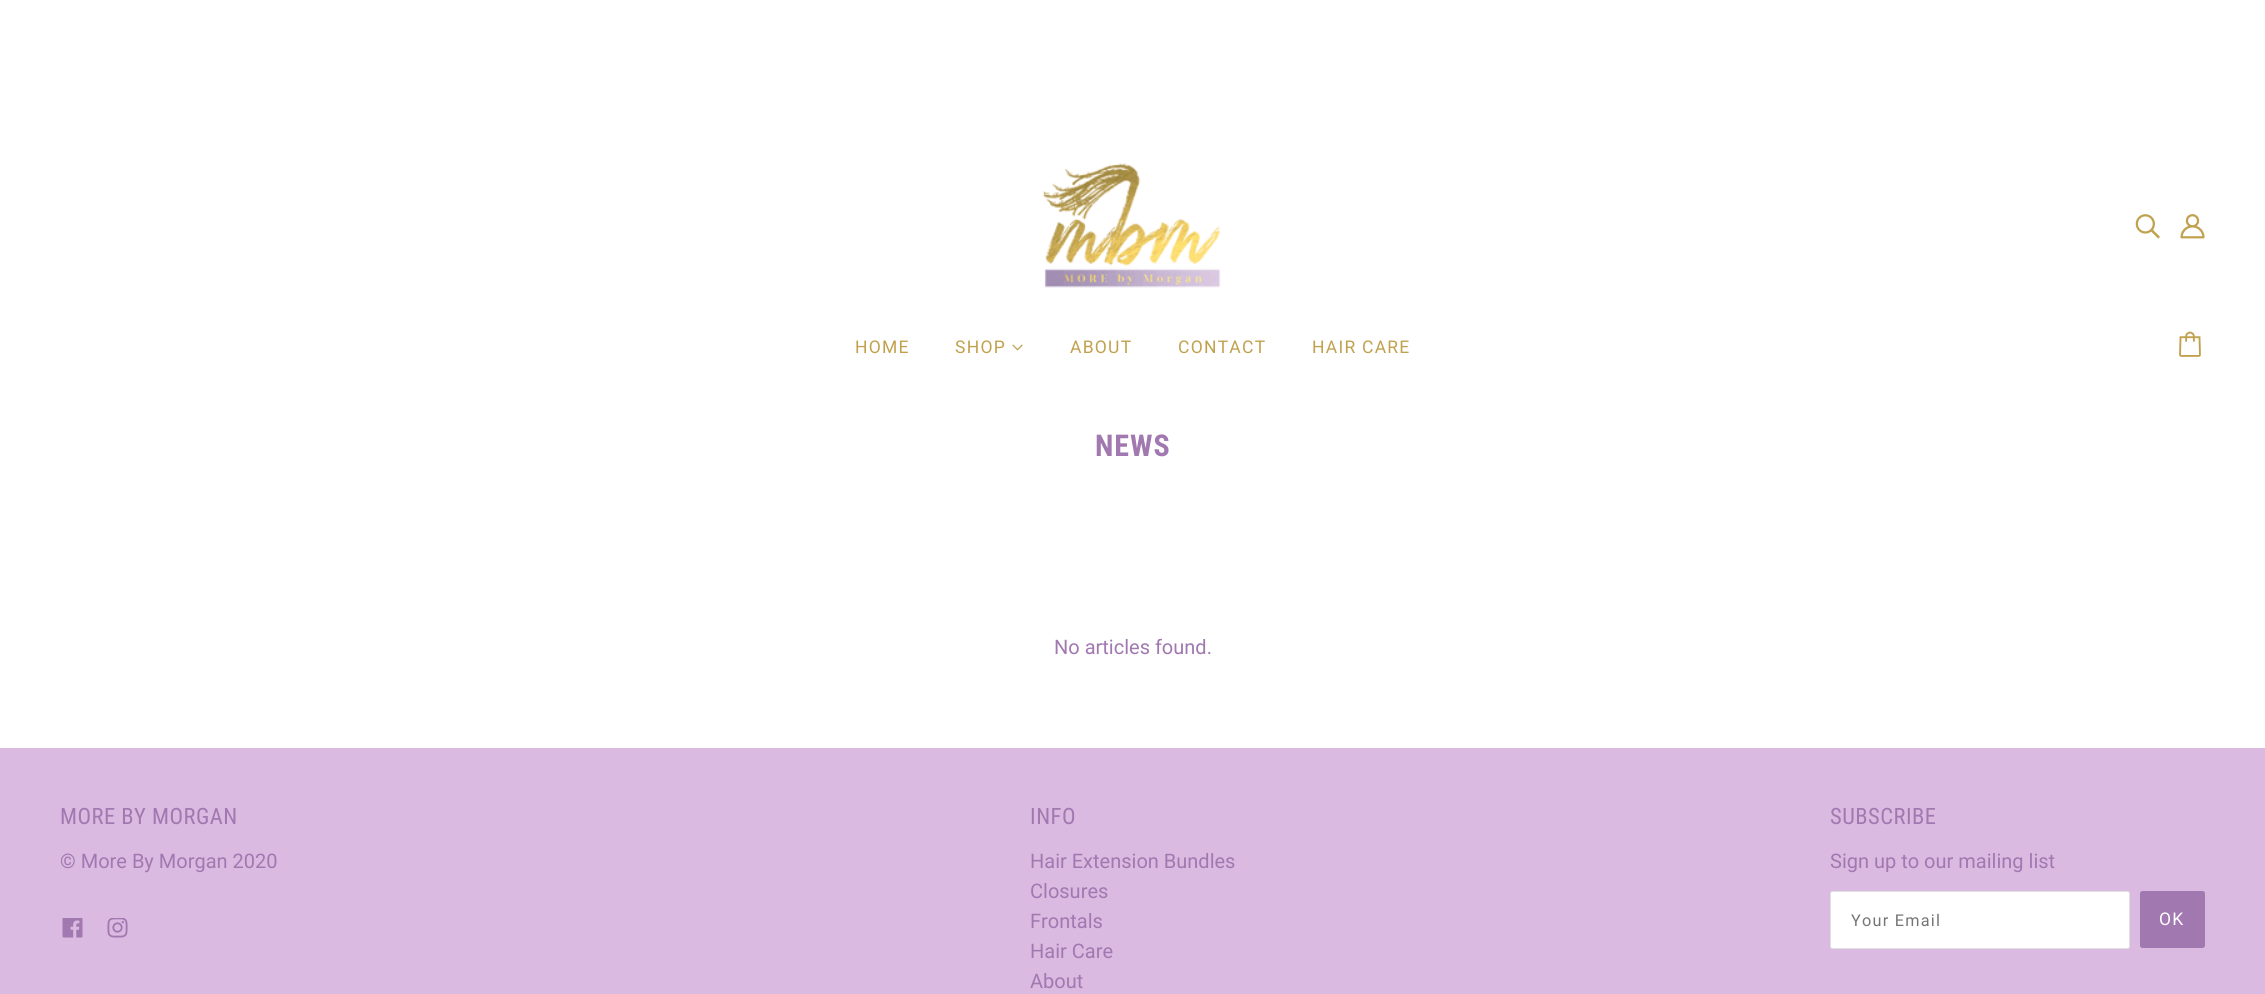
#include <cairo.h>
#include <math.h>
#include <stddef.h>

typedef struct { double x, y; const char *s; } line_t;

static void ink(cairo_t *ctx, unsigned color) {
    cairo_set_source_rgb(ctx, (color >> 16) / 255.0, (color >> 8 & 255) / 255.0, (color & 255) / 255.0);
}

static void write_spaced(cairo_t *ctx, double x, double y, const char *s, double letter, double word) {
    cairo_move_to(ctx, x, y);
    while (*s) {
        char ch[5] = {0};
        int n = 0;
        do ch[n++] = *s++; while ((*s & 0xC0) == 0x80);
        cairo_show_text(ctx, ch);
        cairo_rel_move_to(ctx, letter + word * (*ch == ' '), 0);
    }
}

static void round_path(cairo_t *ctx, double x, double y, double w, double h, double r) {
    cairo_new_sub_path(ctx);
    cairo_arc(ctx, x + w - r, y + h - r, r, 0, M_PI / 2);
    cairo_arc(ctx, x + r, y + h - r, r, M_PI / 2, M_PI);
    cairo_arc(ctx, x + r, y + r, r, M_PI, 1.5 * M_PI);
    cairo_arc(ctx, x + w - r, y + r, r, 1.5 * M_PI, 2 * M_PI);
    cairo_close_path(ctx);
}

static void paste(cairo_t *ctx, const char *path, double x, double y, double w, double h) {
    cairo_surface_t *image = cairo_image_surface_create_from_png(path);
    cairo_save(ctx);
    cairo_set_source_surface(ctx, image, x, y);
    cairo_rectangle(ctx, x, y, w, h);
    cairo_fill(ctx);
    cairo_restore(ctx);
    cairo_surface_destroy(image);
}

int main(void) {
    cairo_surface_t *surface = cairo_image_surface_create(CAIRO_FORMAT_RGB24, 2265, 994);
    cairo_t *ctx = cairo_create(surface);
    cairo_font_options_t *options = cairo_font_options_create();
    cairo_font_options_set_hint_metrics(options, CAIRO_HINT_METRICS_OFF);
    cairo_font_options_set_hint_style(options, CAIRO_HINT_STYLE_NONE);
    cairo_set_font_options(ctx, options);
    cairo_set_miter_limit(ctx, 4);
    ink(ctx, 0xFFFFFF);
    cairo_paint(ctx);
    paste(ctx, "media/1.png", 1043, 163, 178, 125);
    paste(ctx, "media/2.png", 2135, 214, 25, 25);
    paste(ctx, "media/3.png", 2180, 214, 25, 25);
    cairo_select_font_face(ctx, "Roboto", CAIRO_FONT_SLANT_NORMAL, CAIRO_FONT_WEIGHT_NORMAL);
    cairo_set_font_size(ctx, 17.5);
    ink(ctx, 0xC0A14E);
    write_spaced(ctx, 855, 353, "HOME", 1.25, 0);
    write_spaced(ctx, 955, 353, "SHOP", 1.25, 0);
    paste(ctx, "media/4.png", 1012, 344, 11, 7);
    {
        static const line_t items[] = {
            {1070, 353, "ABOUT"},
            {1178, 353, "CONTACT"},
            {1312, 353, "HAIR CARE"},
        };
        for (size_t i = 0; i < sizeof items / sizeof *items; i++) {
            write_spaced(ctx, items[i].x, items[i].y, items[i].s, 1.25, 0);
        }
    }
    paste(ctx, "media/5.png", 2179, 331, 22, 26);
    cairo_select_font_face(ctx, "Roboto Condensed", CAIRO_FONT_SLANT_NORMAL, CAIRO_FONT_WEIGHT_BOLD);
    cairo_set_font_size(ctx, 30);
    ink(ctx, 0xA178B0);
    write_spaced(ctx, 1095, 456, "NEWS", 1, 0);
    cairo_select_font_face(ctx, "Roboto", CAIRO_FONT_SLANT_NORMAL, CAIRO_FONT_WEIGHT_NORMAL);
    cairo_set_font_size(ctx, 20);
    cairo_move_to(ctx, 1054, 654);
    cairo_show_text(ctx, "No articles found.");
    ink(ctx, 0xDABAE1);
    cairo_rectangle(ctx, 0, 748, 2265, 246);
    cairo_fill(ctx);
    cairo_select_font_face(ctx, "Roboto Condensed", CAIRO_FONT_SLANT_NORMAL, CAIRO_FONT_WEIGHT_NORMAL);
    cairo_set_font_size(ctx, 22.5);
    ink(ctx, 0xA178B0);
    write_spaced(ctx, 60, 824, "MORE BY MORGAN", 0.5, 0);
    cairo_select_font_face(ctx, "Roboto", CAIRO_FONT_SLANT_NORMAL, CAIRO_FONT_WEIGHT_NORMAL);
    cairo_set_font_size(ctx, 20);
    cairo_move_to(ctx, 60, 868);
    cairo_show_text(ctx, "© More By Morgan 2020");
    paste(ctx, "media/6.png", 62, 918, 21, 20);
    paste(ctx, "media/7.png", 107, 918, 21, 20);
    cairo_select_font_face(ctx, "Roboto Condensed", CAIRO_FONT_SLANT_NORMAL, CAIRO_FONT_WEIGHT_NORMAL);
    cairo_set_font_size(ctx, 22.5);
    write_spaced(ctx, 1030, 824, "INFO", 0.5, 0);
    cairo_select_font_face(ctx, "Roboto", CAIRO_FONT_SLANT_NORMAL, CAIRO_FONT_WEIGHT_NORMAL);
    cairo_set_font_size(ctx, 20);
    {
        static const line_t items[] = {
            {1030, 868, "Hair Extension Bundles"},
            {1030, 898, "Closures"},
            {1030, 928, "Frontals"},
            {1030, 958, "Hair Care"},
            {1030, 988, "About"},
        };
        for (size_t i = 0; i < sizeof items / sizeof *items; i++) {
            cairo_move_to(ctx, items[i].x, items[i].y);
            cairo_show_text(ctx, items[i].s);
        }
    }
    cairo_select_font_face(ctx, "Roboto Condensed", CAIRO_FONT_SLANT_NORMAL, CAIRO_FONT_WEIGHT_NORMAL);
    cairo_set_font_size(ctx, 22.5);
    write_spaced(ctx, 1830, 824, "SUBSCRIBE", 0.5, 0);
    cairo_select_font_face(ctx, "Roboto", CAIRO_FONT_SLANT_NORMAL, CAIRO_FONT_WEIGHT_NORMAL);
    cairo_set_font_size(ctx, 20);
    cairo_move_to(ctx, 1830, 868);
    cairo_show_text(ctx, "Sign up to our mailing list");
    ink(ctx, 0xFFFFFF);
    round_path(ctx, 1830.5, 891.5, 299, 57, 2);
    cairo_fill_preserve(ctx);
    ink(ctx, 0xE0E0E0);
    cairo_set_line_width(ctx, 1);
    cairo_stroke(ctx);
    cairo_set_font_size(ctx, 16.25);
    ink(ctx, 0x757575);
    write_spaced(ctx, 1851, 926, "Your Email", 1.25, 0);
    ink(ctx, 0xA178B0);
    round_path(ctx, 2140, 891, 65, 57, 2.5);
    cairo_fill(ctx);
    cairo_set_font_size(ctx, 17.5);
    ink(ctx, 0xFFFFFF);
    write_spaced(ctx, 2159, 925, "OK", 1.25, 0);
    cairo_surface_write_to_png(surface, "image.png");
    cairo_font_options_destroy(options);
    cairo_destroy(ctx);
    cairo_surface_destroy(surface);
    return 0;
}
